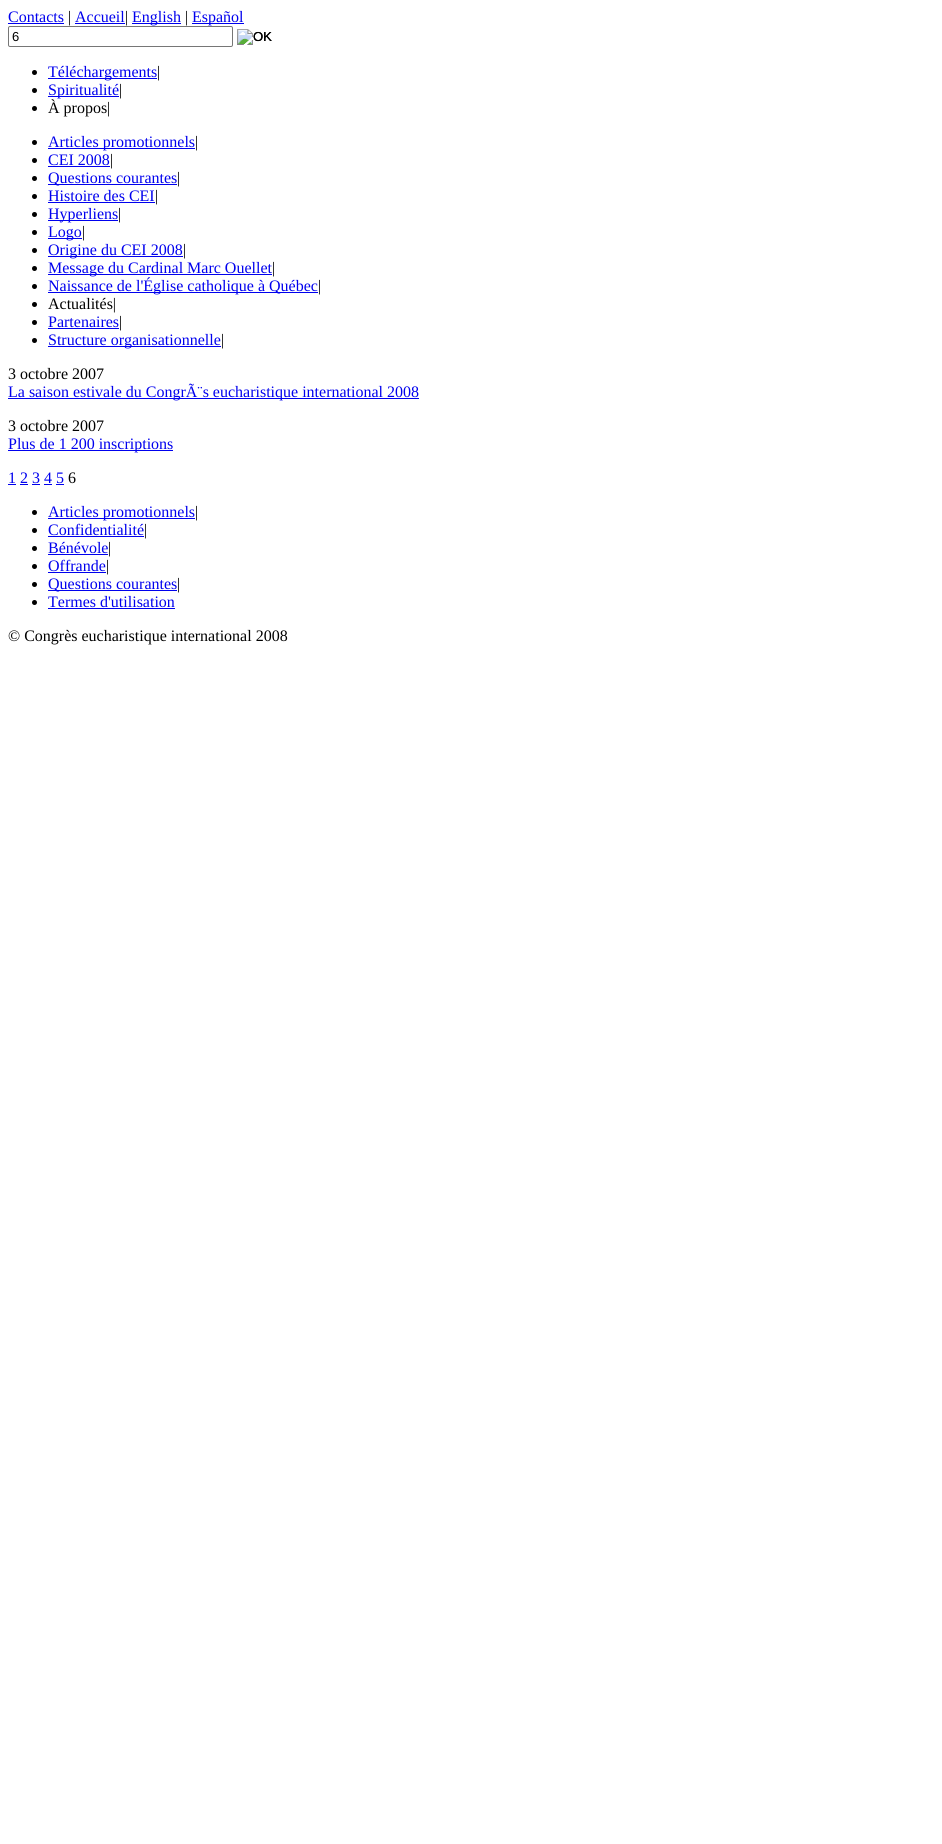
#include <cairo.h>
#include <math.h>
#include <stddef.h>

typedef struct { double x, y, w, h; unsigned color; } box_t;

static void ink(cairo_t *ctx, unsigned color) {
    cairo_set_source_rgb(ctx, (color >> 16) / 255.0, (color >> 8 & 255) / 255.0, (color & 255) / 255.0);
}

static void round_path(cairo_t *ctx, double x, double y, double w, double h, double r) {
    cairo_new_sub_path(ctx);
    cairo_arc(ctx, x + w - r, y + h - r, r, 0, M_PI / 2);
    cairo_arc(ctx, x + r, y + h - r, r, M_PI / 2, M_PI);
    cairo_arc(ctx, x + r, y + r, r, M_PI, 1.5 * M_PI);
    cairo_arc(ctx, x + w - r, y + r, r, 1.5 * M_PI, 2 * M_PI);
    cairo_close_path(ctx);
}

static void paste(cairo_t *ctx, const char *path, double x, double y, double w, double h) {
    cairo_surface_t *image = cairo_image_surface_create_from_png(path);
    cairo_save(ctx);
    cairo_set_source_surface(ctx, image, x, y);
    cairo_rectangle(ctx, x, y, w, h);
    cairo_fill(ctx);
    cairo_restore(ctx);
    cairo_surface_destroy(image);
}

int main(void) {
    cairo_surface_t *surface = cairo_image_surface_create(CAIRO_FORMAT_RGB24, 942, 1844);
    cairo_t *ctx = cairo_create(surface);
    cairo_font_options_t *options = cairo_font_options_create();
    cairo_font_options_set_hint_metrics(options, CAIRO_HINT_METRICS_OFF);
    cairo_font_options_set_hint_style(options, CAIRO_HINT_STYLE_NONE);
    cairo_set_font_options(ctx, options);
    cairo_set_miter_limit(ctx, 4);
    ink(ctx, 0xFFFFFF);
    cairo_paint(ctx);
    cairo_select_font_face(ctx, "Liberation Serif", CAIRO_FONT_SLANT_NORMAL, CAIRO_FONT_WEIGHT_NORMAL);
    cairo_set_font_size(ctx, 16);
    ink(ctx, 0x0000EE);
    cairo_move_to(ctx, 8, 22);
    cairo_show_text(ctx, "Contacts");
    cairo_rectangle(ctx, 8, 23, 56, 1);
    cairo_fill(ctx);
    ink(ctx, 0x000000);
    cairo_move_to(ctx, 68, 22);
    cairo_show_text(ctx, "|");
    ink(ctx, 0x0000EE);
    cairo_move_to(ctx, 75, 22);
    cairo_show_text(ctx, "Accueil");
    cairo_rectangle(ctx, 75, 23, 50, 1);
    cairo_fill(ctx);
    ink(ctx, 0x000000);
    cairo_move_to(ctx, 125, 22);
    cairo_show_text(ctx, "|");
    ink(ctx, 0x0000EE);
    cairo_rectangle(ctx, 132, 23, 49, 1);
    cairo_fill(ctx);
    cairo_move_to(ctx, 132, 22);
    cairo_show_text(ctx, "English");
    ink(ctx, 0x000000);
    cairo_move_to(ctx, 185, 22);
    cairo_show_text(ctx, "|");
    ink(ctx, 0x0000EE);
    cairo_rectangle(ctx, 192, 23, 52, 1);
    cairo_fill(ctx);
    cairo_move_to(ctx, 192, 22);
    cairo_show_text(ctx, "Español");
    round_path(ctx, 8.5, 26.5, 224, 20, 1.5);
    ink(ctx, 0x767676);
    cairo_set_line_width(ctx, 1);
    cairo_stroke(ctx);
    cairo_select_font_face(ctx, "Liberation Sans", CAIRO_FONT_SLANT_NORMAL, CAIRO_FONT_WEIGHT_NORMAL);
    cairo_set_font_size(ctx, 13);
    ink(ctx, 0x000000);
    cairo_move_to(ctx, 12, 41);
    cairo_show_text(ctx, "6");
    paste(ctx, "media/1.png", 237, 29, 35, 16);
    cairo_move_to(ctx, 253, 41);
    cairo_show_text(ctx, "OK");
    cairo_new_path(ctx);
    cairo_arc(ctx, 34.5, 72.5, 2.5, 0, 2 * M_PI);
    cairo_fill(ctx);
    ink(ctx, 0x0000EE);
    cairo_rectangle(ctx, 48, 78, 109, 1);
    cairo_fill(ctx);
    cairo_select_font_face(ctx, "Liberation Serif", CAIRO_FONT_SLANT_NORMAL, CAIRO_FONT_WEIGHT_NORMAL);
    cairo_set_font_size(ctx, 16);
    cairo_move_to(ctx, 48, 77);
    cairo_show_text(ctx, "Téléchargements");
    ink(ctx, 0x000000);
    cairo_move_to(ctx, 157, 77);
    cairo_show_text(ctx, "|");
    cairo_new_path(ctx);
    cairo_arc(ctx, 34.5, 90.5, 2.5, 0, 2 * M_PI);
    cairo_fill(ctx);
    ink(ctx, 0x0000EE);
    cairo_rectangle(ctx, 48, 96, 71, 1);
    cairo_fill(ctx);
    cairo_move_to(ctx, 48, 95);
    cairo_show_text(ctx, "Spiritualité");
    ink(ctx, 0x000000);
    cairo_move_to(ctx, 119, 95);
    cairo_show_text(ctx, "|");
    cairo_new_path(ctx);
    cairo_arc(ctx, 34.5, 108.5, 2.5, 0, 2 * M_PI);
    cairo_fill(ctx);
    cairo_move_to(ctx, 48, 113);
    cairo_show_text(ctx, "À propos|");
    cairo_new_path(ctx);
    cairo_arc(ctx, 34.5, 142.5, 2.5, 0, 2 * M_PI);
    cairo_fill(ctx);
    ink(ctx, 0x0000EE);
    cairo_rectangle(ctx, 48, 148, 147, 1);
    cairo_fill(ctx);
    cairo_move_to(ctx, 48, 147);
    cairo_show_text(ctx, "Articles promotionnels");
    ink(ctx, 0x000000);
    cairo_move_to(ctx, 195, 147);
    cairo_show_text(ctx, "|");
    cairo_new_path(ctx);
    cairo_arc(ctx, 34.5, 160.5, 2.5, 0, 2 * M_PI);
    cairo_fill(ctx);
    ink(ctx, 0x0000EE);
    cairo_move_to(ctx, 48, 165);
    cairo_show_text(ctx, "CEI 2008");
    cairo_rectangle(ctx, 48, 166, 62, 1);
    cairo_fill(ctx);
    ink(ctx, 0x000000);
    cairo_move_to(ctx, 110, 165);
    cairo_show_text(ctx, "|");
    cairo_new_path(ctx);
    cairo_arc(ctx, 34.5, 178.5, 2.5, 0, 2 * M_PI);
    cairo_fill(ctx);
    ink(ctx, 0x0000EE);
    cairo_rectangle(ctx, 48, 184, 129, 1);
    cairo_fill(ctx);
    cairo_move_to(ctx, 48, 183);
    cairo_show_text(ctx, "Questions courantes");
    ink(ctx, 0x000000);
    cairo_move_to(ctx, 177, 183);
    cairo_show_text(ctx, "|");
    cairo_new_path(ctx);
    cairo_arc(ctx, 34.5, 196.5, 2.5, 0, 2 * M_PI);
    cairo_fill(ctx);
    ink(ctx, 0x0000EE);
    cairo_move_to(ctx, 48, 201);
    cairo_show_text(ctx, "Histoire des CEI");
    cairo_rectangle(ctx, 48, 202, 107, 1);
    cairo_fill(ctx);
    ink(ctx, 0x000000);
    cairo_move_to(ctx, 155, 201);
    cairo_show_text(ctx, "|");
    cairo_new_path(ctx);
    cairo_arc(ctx, 34.5, 214.5, 2.5, 0, 2 * M_PI);
    cairo_fill(ctx);
    ink(ctx, 0x0000EE);
    cairo_rectangle(ctx, 48, 220, 70, 1);
    cairo_fill(ctx);
    cairo_move_to(ctx, 48, 219);
    cairo_show_text(ctx, "Hyperliens");
    ink(ctx, 0x000000);
    cairo_move_to(ctx, 118, 219);
    cairo_show_text(ctx, "|");
    cairo_new_path(ctx);
    cairo_arc(ctx, 34.5, 232.5, 2.5, 0, 2 * M_PI);
    cairo_fill(ctx);
    ink(ctx, 0x0000EE);
    cairo_rectangle(ctx, 48, 238, 34, 1);
    cairo_fill(ctx);
    cairo_move_to(ctx, 48, 237);
    cairo_show_text(ctx, "Logo");
    ink(ctx, 0x000000);
    cairo_move_to(ctx, 82, 237);
    cairo_show_text(ctx, "|");
    cairo_new_path(ctx);
    cairo_arc(ctx, 34.5, 250.5, 2.5, 0, 2 * M_PI);
    cairo_fill(ctx);
    ink(ctx, 0x0000EE);
    cairo_rectangle(ctx, 48, 256, 135, 1);
    cairo_fill(ctx);
    cairo_move_to(ctx, 48, 255);
    cairo_show_text(ctx, "Origine du CEI 2008");
    ink(ctx, 0x000000);
    cairo_move_to(ctx, 183, 255);
    cairo_show_text(ctx, "|");
    cairo_new_path(ctx);
    cairo_arc(ctx, 34.5, 268.5, 2.5, 0, 2 * M_PI);
    cairo_fill(ctx);
    ink(ctx, 0x0000EE);
    cairo_rectangle(ctx, 48, 274, 224, 1);
    cairo_fill(ctx);
    cairo_move_to(ctx, 48, 273);
    cairo_show_text(ctx, "Message du Cardinal Marc Ouellet");
    ink(ctx, 0x000000);
    cairo_move_to(ctx, 272, 273);
    cairo_show_text(ctx, "|");
    cairo_new_path(ctx);
    cairo_arc(ctx, 34.5, 286.5, 2.5, 0, 2 * M_PI);
    cairo_fill(ctx);
    ink(ctx, 0x0000EE);
    cairo_rectangle(ctx, 48, 292, 270, 1);
    cairo_fill(ctx);
    cairo_move_to(ctx, 48, 291);
    cairo_show_text(ctx, "Naissance de l'Église catholique à Québec");
    ink(ctx, 0x000000);
    cairo_move_to(ctx, 318, 291);
    cairo_show_text(ctx, "|");
    cairo_new_path(ctx);
    cairo_arc(ctx, 34.5, 304.5, 2.5, 0, 2 * M_PI);
    cairo_fill(ctx);
    cairo_move_to(ctx, 48, 309);
    cairo_show_text(ctx, "Actualités|");
    cairo_new_path(ctx);
    cairo_arc(ctx, 34.5, 322.5, 2.5, 0, 2 * M_PI);
    cairo_fill(ctx);
    ink(ctx, 0x0000EE);
    cairo_move_to(ctx, 48, 327);
    cairo_show_text(ctx, "Partenaires");
    cairo_rectangle(ctx, 48, 328, 71, 1);
    cairo_fill(ctx);
    ink(ctx, 0x000000);
    cairo_move_to(ctx, 119, 327);
    cairo_show_text(ctx, "|");
    cairo_new_path(ctx);
    cairo_arc(ctx, 34.5, 340.5, 2.5, 0, 2 * M_PI);
    cairo_fill(ctx);
    ink(ctx, 0x0000EE);
    cairo_rectangle(ctx, 48, 346, 173, 1);
    cairo_fill(ctx);
    cairo_move_to(ctx, 48, 345);
    cairo_show_text(ctx, "Structure organisationnelle");
    ink(ctx, 0x000000);
    cairo_move_to(ctx, 221, 345);
    cairo_show_text(ctx, "|");
    cairo_move_to(ctx, 8, 379);
    cairo_show_text(ctx, "3 octobre 2007");
    ink(ctx, 0x0000EE);
    cairo_rectangle(ctx, 8, 398, 411, 1);
    cairo_fill(ctx);
    cairo_move_to(ctx, 8, 397);
    cairo_show_text(ctx, "La saison estivale du CongrÃ¨s eucharistique international 2008");
    ink(ctx, 0x000000);
    cairo_move_to(ctx, 8, 431);
    cairo_show_text(ctx, "3 octobre 2007");
    ink(ctx, 0x0000EE);
    cairo_rectangle(ctx, 8, 450, 165, 1);
    cairo_fill(ctx);
    cairo_move_to(ctx, 8, 449);
    cairo_show_text(ctx, "Plus de 1 200 inscriptions");
    cairo_move_to(ctx, 8, 483);
    cairo_show_text(ctx, "1 2 3 4 5");
    cairo_rectangle(ctx, 8, 484, 8, 1);
    cairo_fill(ctx);
    ink(ctx, 0x000000);
    cairo_move_to(ctx, 68, 483);
    cairo_show_text(ctx, "6");
    {
        static const box_t items[] = {
            {20, 484, 8, 1, 0x0000EE},
            {32, 484, 8, 1, 0x0000EE},
            {44, 484, 8, 1, 0x0000EE},
            {56, 484, 8, 1, 0x0000EE},
        };
        for (size_t i = 0; i < sizeof items / sizeof *items; i++) {
            ink(ctx, items[i].color);
            cairo_rectangle(ctx, items[i].x, items[i].y, items[i].w, items[i].h);
            cairo_fill(ctx);
        }
    }
    ink(ctx, 0x000000);
    cairo_new_path(ctx);
    cairo_arc(ctx, 34.5, 512.5, 2.5, 0, 2 * M_PI);
    cairo_fill(ctx);
    ink(ctx, 0x0000EE);
    cairo_rectangle(ctx, 48, 518, 147, 1);
    cairo_fill(ctx);
    cairo_move_to(ctx, 48, 517);
    cairo_show_text(ctx, "Articles promotionnels");
    ink(ctx, 0x000000);
    cairo_move_to(ctx, 195, 517);
    cairo_show_text(ctx, "|");
    cairo_new_path(ctx);
    cairo_arc(ctx, 34.5, 530.5, 2.5, 0, 2 * M_PI);
    cairo_fill(ctx);
    ink(ctx, 0x0000EE);
    cairo_move_to(ctx, 48, 535);
    cairo_show_text(ctx, "Confidentialité");
    cairo_rectangle(ctx, 48, 536, 96, 1);
    cairo_fill(ctx);
    ink(ctx, 0x000000);
    cairo_move_to(ctx, 144, 535);
    cairo_show_text(ctx, "|");
    cairo_new_path(ctx);
    cairo_arc(ctx, 34.5, 548.5, 2.5, 0, 2 * M_PI);
    cairo_fill(ctx);
    ink(ctx, 0x0000EE);
    cairo_move_to(ctx, 48, 553);
    cairo_show_text(ctx, "Bénévole");
    cairo_rectangle(ctx, 48, 554, 60, 1);
    cairo_fill(ctx);
    ink(ctx, 0x000000);
    cairo_move_to(ctx, 108, 553);
    cairo_show_text(ctx, "|");
    cairo_new_path(ctx);
    cairo_arc(ctx, 34.5, 566.5, 2.5, 0, 2 * M_PI);
    cairo_fill(ctx);
    ink(ctx, 0x0000EE);
    cairo_move_to(ctx, 48, 571);
    cairo_show_text(ctx, "Offrande");
    cairo_rectangle(ctx, 48, 572, 58, 1);
    cairo_fill(ctx);
    ink(ctx, 0x000000);
    cairo_move_to(ctx, 106, 571);
    cairo_show_text(ctx, "|");
    cairo_new_path(ctx);
    cairo_arc(ctx, 34.5, 584.5, 2.5, 0, 2 * M_PI);
    cairo_fill(ctx);
    ink(ctx, 0x0000EE);
    cairo_rectangle(ctx, 48, 590, 129, 1);
    cairo_fill(ctx);
    cairo_move_to(ctx, 48, 589);
    cairo_show_text(ctx, "Questions courantes");
    ink(ctx, 0x000000);
    cairo_move_to(ctx, 177, 589);
    cairo_show_text(ctx, "|");
    cairo_new_path(ctx);
    cairo_arc(ctx, 34.5, 602.5, 2.5, 0, 2 * M_PI);
    cairo_fill(ctx);
    ink(ctx, 0x0000EE);
    cairo_move_to(ctx, 48, 607);
    cairo_show_text(ctx, "Termes d'utilisation");
    cairo_rectangle(ctx, 48, 608, 127, 1);
    cairo_fill(ctx);
    ink(ctx, 0x000000);
    cairo_move_to(ctx, 8, 641);
    cairo_show_text(ctx, "© Congrès eucharistique international 2008");
    cairo_surface_write_to_png(surface, "image.png");
    cairo_font_options_destroy(options);
    cairo_destroy(ctx);
    cairo_surface_destroy(surface);
    return 0;
}
